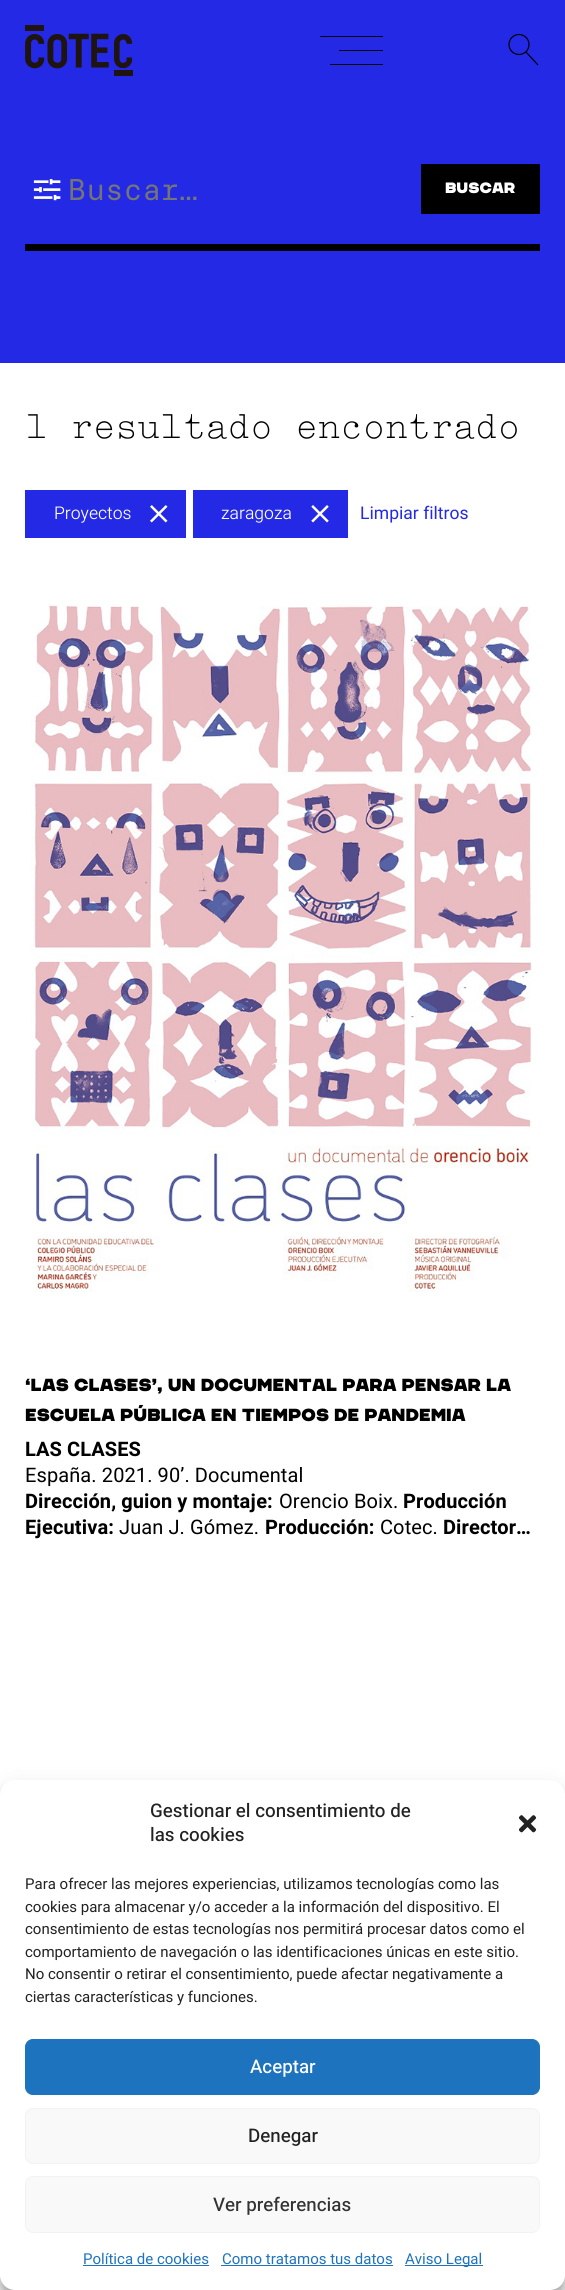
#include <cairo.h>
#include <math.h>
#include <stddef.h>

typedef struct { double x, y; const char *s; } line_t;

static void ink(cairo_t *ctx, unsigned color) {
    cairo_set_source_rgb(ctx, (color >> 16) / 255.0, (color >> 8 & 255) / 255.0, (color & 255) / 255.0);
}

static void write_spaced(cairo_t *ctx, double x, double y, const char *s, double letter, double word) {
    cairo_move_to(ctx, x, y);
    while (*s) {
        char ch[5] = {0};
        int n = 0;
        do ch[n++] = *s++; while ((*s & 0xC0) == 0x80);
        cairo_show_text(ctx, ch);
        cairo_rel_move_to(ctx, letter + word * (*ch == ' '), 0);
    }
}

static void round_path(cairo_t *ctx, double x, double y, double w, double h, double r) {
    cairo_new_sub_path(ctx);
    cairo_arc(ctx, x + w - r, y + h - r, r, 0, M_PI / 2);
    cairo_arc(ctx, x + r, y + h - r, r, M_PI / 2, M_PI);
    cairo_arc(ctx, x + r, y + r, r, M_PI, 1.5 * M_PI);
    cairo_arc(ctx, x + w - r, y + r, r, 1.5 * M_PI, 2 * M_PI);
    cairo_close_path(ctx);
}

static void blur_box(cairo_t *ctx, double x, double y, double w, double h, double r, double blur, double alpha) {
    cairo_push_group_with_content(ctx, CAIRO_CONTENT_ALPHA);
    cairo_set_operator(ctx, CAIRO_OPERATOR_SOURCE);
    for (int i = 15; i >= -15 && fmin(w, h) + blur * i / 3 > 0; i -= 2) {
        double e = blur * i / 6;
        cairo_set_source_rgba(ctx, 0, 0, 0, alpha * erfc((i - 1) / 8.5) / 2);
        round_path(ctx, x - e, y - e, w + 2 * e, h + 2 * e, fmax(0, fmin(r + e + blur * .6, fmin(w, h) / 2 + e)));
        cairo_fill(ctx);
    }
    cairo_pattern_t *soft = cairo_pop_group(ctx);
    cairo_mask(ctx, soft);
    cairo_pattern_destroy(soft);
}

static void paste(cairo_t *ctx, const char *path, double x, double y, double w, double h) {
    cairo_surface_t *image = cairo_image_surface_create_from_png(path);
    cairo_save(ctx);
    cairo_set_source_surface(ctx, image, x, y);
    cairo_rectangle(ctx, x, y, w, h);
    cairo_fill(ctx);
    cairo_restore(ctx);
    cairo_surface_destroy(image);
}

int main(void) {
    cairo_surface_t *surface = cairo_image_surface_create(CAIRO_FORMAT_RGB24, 565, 2290);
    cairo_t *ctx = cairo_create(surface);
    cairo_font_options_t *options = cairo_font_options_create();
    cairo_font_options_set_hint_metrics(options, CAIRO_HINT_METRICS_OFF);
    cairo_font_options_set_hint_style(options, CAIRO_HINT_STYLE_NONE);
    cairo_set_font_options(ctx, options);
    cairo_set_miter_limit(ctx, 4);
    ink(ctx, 0xFFFFFF);
    cairo_paint(ctx);
    ink(ctx, 0x2329E4);
    cairo_rectangle(ctx, 0, 0, 565, 363);
    cairo_fill(ctx);
    paste(ctx, "media/1.png", 25, 25, 108, 51);
    ink(ctx, 0x000000);
    round_path(ctx, 320, 36, 63, 1, 0.5);
    cairo_fill(ctx);
    round_path(ctx, 339, 50, 44, 1, 0.5);
    cairo_fill(ctx);
    round_path(ctx, 330, 64, 53, 1, 0.5);
    cairo_fill(ctx);
    cairo_arc(ctx, 519, 44.5, 10, 0, 2 * M_PI);
    cairo_set_line_width(ctx, 1.2);
    cairo_stroke(ctx);
    cairo_new_path(ctx);
    cairo_move_to(ctx, 526, 52);
    cairo_line_to(ctx, 538, 65);
    cairo_stroke(ctx);
    cairo_rectangle(ctx, 25, 244, 515, 7);
    cairo_fill(ctx);
    paste(ctx, "media/2.png", 33, 179, 28, 22);
    cairo_select_font_face(ctx, "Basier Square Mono", CAIRO_FONT_SLANT_NORMAL, CAIRO_FONT_WEIGHT_NORMAL);
    cairo_set_font_size(ctx, 30);
    ink(ctx, 0x757575);
    cairo_move_to(ctx, 68, 200);
    cairo_show_text(ctx, "Buscar…");
    ink(ctx, 0x000000);
    round_path(ctx, 421, 164, 119, 50, 1);
    cairo_fill(ctx);
    cairo_select_font_face(ctx, "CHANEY", CAIRO_FONT_SLANT_NORMAL, CAIRO_FONT_WEIGHT_NORMAL);
    cairo_set_font_size(ctx, 15);
    ink(ctx, 0xFFFFFF);
    cairo_move_to(ctx, 445, 193);
    cairo_show_text(ctx, "Buscar");
    cairo_select_font_face(ctx, "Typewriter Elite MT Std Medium", CAIRO_FONT_SLANT_NORMAL, CAIRO_FONT_WEIGHT_NORMAL);
    cairo_set_font_size(ctx, 37.5);
    ink(ctx, 0x000000);
    cairo_move_to(ctx, 25, 438);
    cairo_show_text(ctx, "1 resultado encontrado");
    ink(ctx, 0x2329E4);
    cairo_rectangle(ctx, 25, 490, 161, 48);
    cairo_fill(ctx);
    cairo_select_font_face(ctx, "Heebo Light", CAIRO_FONT_SLANT_NORMAL, CAIRO_FONT_WEIGHT_NORMAL);
    cairo_set_font_size(ctx, 17.5);
    ink(ctx, 0xFFFFFF);
    cairo_move_to(ctx, 54, 519);
    cairo_show_text(ctx, "Proyectos");
    paste(ctx, "media/3.png", 150, 505, 18, 18);
    ink(ctx, 0x2329E4);
    cairo_rectangle(ctx, 193, 490, 155, 48);
    cairo_fill(ctx);
    ink(ctx, 0xFFFFFF);
    cairo_move_to(ctx, 221, 519);
    cairo_show_text(ctx, "zaragoza");
    paste(ctx, "media/4.png", 311, 505, 18, 18);
    cairo_select_font_face(ctx, "Heebo", CAIRO_FONT_SLANT_NORMAL, CAIRO_FONT_WEIGHT_NORMAL);
    ink(ctx, 0x2329E4);
    cairo_move_to(ctx, 360, 519);
    cairo_show_text(ctx, "Limpiar filtros");
    paste(ctx, "media/5.png", 31, 604, 501, 688);
    cairo_select_font_face(ctx, "CHANEY", CAIRO_FONT_SLANT_NORMAL, CAIRO_FONT_WEIGHT_NORMAL);
    ink(ctx, 0x000000);
    cairo_move_to(ctx, 25, 1391);
    cairo_show_text(ctx, "‘LAS CLASES’, UN DOCUMENTAL PARA PENSAR LA");
    cairo_move_to(ctx, 25, 1421);
    cairo_show_text(ctx, "ESCUELA PÚBLICA EN TIEMPOS DE PANDEMIA");
    cairo_select_font_face(ctx, "Heebo", CAIRO_FONT_SLANT_NORMAL, CAIRO_FONT_WEIGHT_BOLD);
    cairo_set_font_size(ctx, 20);
    write_spaced(ctx, 25, 1456, "LAS CLASES", 0.1, 0);
    cairo_select_font_face(ctx, "Heebo", CAIRO_FONT_SLANT_NORMAL, CAIRO_FONT_WEIGHT_NORMAL);
    write_spaced(ctx, 25, 1482, "España. 2021. 90’. Documental", 0.1, 0);
    cairo_select_font_face(ctx, "Heebo", CAIRO_FONT_SLANT_NORMAL, CAIRO_FONT_WEIGHT_BOLD);
    write_spaced(ctx, 25, 1508, "Dirección, guion y montaje:", 0.1, 0);
    cairo_select_font_face(ctx, "Heebo", CAIRO_FONT_SLANT_NORMAL, CAIRO_FONT_WEIGHT_NORMAL);
    write_spaced(ctx, 279, 1508, "Orencio Boix.", 0.1, 0);
    cairo_select_font_face(ctx, "Heebo", CAIRO_FONT_SLANT_NORMAL, CAIRO_FONT_WEIGHT_BOLD);
    write_spaced(ctx, 403, 1508, "Producción", 0.1, 0);
    write_spaced(ctx, 25, 1534, "Ejecutiva:", 0.1, 0);
    cairo_select_font_face(ctx, "Heebo", CAIRO_FONT_SLANT_NORMAL, CAIRO_FONT_WEIGHT_NORMAL);
    write_spaced(ctx, 119, 1534, "Juan J. Gómez.", 0.1, 0);
    cairo_select_font_face(ctx, "Heebo", CAIRO_FONT_SLANT_NORMAL, CAIRO_FONT_WEIGHT_BOLD);
    write_spaced(ctx, 265, 1534, "Producción:", 0.1, 0);
    cairo_select_font_face(ctx, "Heebo", CAIRO_FONT_SLANT_NORMAL, CAIRO_FONT_WEIGHT_NORMAL);
    write_spaced(ctx, 380, 1534, "Cotec.", 0.1, 0);
    cairo_select_font_face(ctx, "Heebo", CAIRO_FONT_SLANT_NORMAL, CAIRO_FONT_WEIGHT_BOLD);
    write_spaced(ctx, 443, 1534, "Director…", 0.1, 0);
    ink(ctx, 0x000000);
    blur_box(ctx, 0, 1788, 565, 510, 15, 4, 0.23);
    blur_box(ctx, 0, 1793, 565, 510, 15, 12.5, 0.19);
    ink(ctx, 0x808080);
    blur_box(ctx, 478, 2198, 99, 75, 2.5, 3, 1);
    ink(ctx, 0xFFFFFF);
    round_path(ctx, 0, 1780, 565, 510, 15);
    cairo_fill(ctx);
    cairo_select_font_face(ctx, "Heebo Medium", CAIRO_FONT_SLANT_NORMAL, CAIRO_FONT_WEIGHT_NORMAL);
    cairo_set_font_size(ctx, 18.75);
    ink(ctx, 0x222222);
    cairo_move_to(ctx, 150, 1817);
    cairo_show_text(ctx, "Gestionar el consentimiento de");
    cairo_move_to(ctx, 150, 1841);
    cairo_show_text(ctx, "las cookies");
    paste(ctx, "media/6.png", 518, 1815, 19, 18);
    cairo_select_font_face(ctx, "Heebo", CAIRO_FONT_SLANT_NORMAL, CAIRO_FONT_WEIGHT_NORMAL);
    cairo_set_font_size(ctx, 15);
    {
        static const line_t items[] = {
            {25, 1889, "Para ofrecer las mejores experiencias, utilizamos tecnologías como las"},
            {25, 1912, "cookies para almacenar y/o acceder a la información del dispositivo. El"},
            {25, 1934, "consentimiento de estas tecnologías nos permitirá procesar datos como el"},
            {25, 1957, "comportamiento de navegación o las identificaciones únicas en este sitio."},
            {25, 1979, "No consentir o retirar el consentimiento, puede afectar negativamente a"},
            {25, 2002, "ciertas características y funciones."},
        };
        for (size_t i = 0; i < sizeof items / sizeof *items; i++) {
            cairo_move_to(ctx, items[i].x, items[i].y);
            cairo_show_text(ctx, items[i].s);
        }
    }
    ink(ctx, 0x1E73BE);
    round_path(ctx, 25.5, 2039.5, 514, 55, 7.5);
    cairo_fill_preserve(ctx);
    cairo_set_line_width(ctx, 1);
    cairo_stroke(ctx);
    cairo_select_font_face(ctx, "Heebo Medium", CAIRO_FONT_SLANT_NORMAL, CAIRO_FONT_WEIGHT_NORMAL);
    cairo_set_font_size(ctx, 18.75);
    ink(ctx, 0xFFFFFF);
    cairo_move_to(ctx, 250, 2073);
    cairo_show_text(ctx, "Aceptar");
    ink(ctx, 0xF9F9F9);
    round_path(ctx, 25.5, 2108.5, 514, 55, 7.5);
    cairo_fill_preserve(ctx);
    ink(ctx, 0xF2F2F2);
    cairo_stroke(ctx);
    ink(ctx, 0x222222);
    cairo_move_to(ctx, 248, 2142);
    cairo_show_text(ctx, "Denegar");
    ink(ctx, 0xF9F9F9);
    round_path(ctx, 25.5, 2176.5, 514, 56, 7.5);
    cairo_fill_preserve(ctx);
    ink(ctx, 0xF2F2F2);
    cairo_stroke(ctx);
    ink(ctx, 0x333333);
    cairo_move_to(ctx, 213, 2211);
    cairo_show_text(ctx, "Ver preferencias");
    cairo_select_font_face(ctx, "Heebo", CAIRO_FONT_SLANT_NORMAL, CAIRO_FONT_WEIGHT_NORMAL);
    cairo_set_font_size(ctx, 15);
    ink(ctx, 0x1E73BE);
    cairo_move_to(ctx, 83, 2264);
    cairo_show_text(ctx, "Política de cookies");
    cairo_rectangle(ctx, 83, 2265, 126, 1);
    cairo_fill(ctx);
    cairo_move_to(ctx, 222, 2264);
    cairo_show_text(ctx, "Como tratamos tus datos");
    cairo_rectangle(ctx, 221, 2265, 172, 1);
    cairo_fill(ctx);
    cairo_rectangle(ctx, 405, 2265, 78, 1);
    cairo_fill(ctx);
    cairo_move_to(ctx, 405, 2264);
    cairo_show_text(ctx, "Aviso Legal");
    cairo_surface_write_to_png(surface, "image.png");
    cairo_font_options_destroy(options);
    cairo_destroy(ctx);
    cairo_surface_destroy(surface);
    return 0;
}
